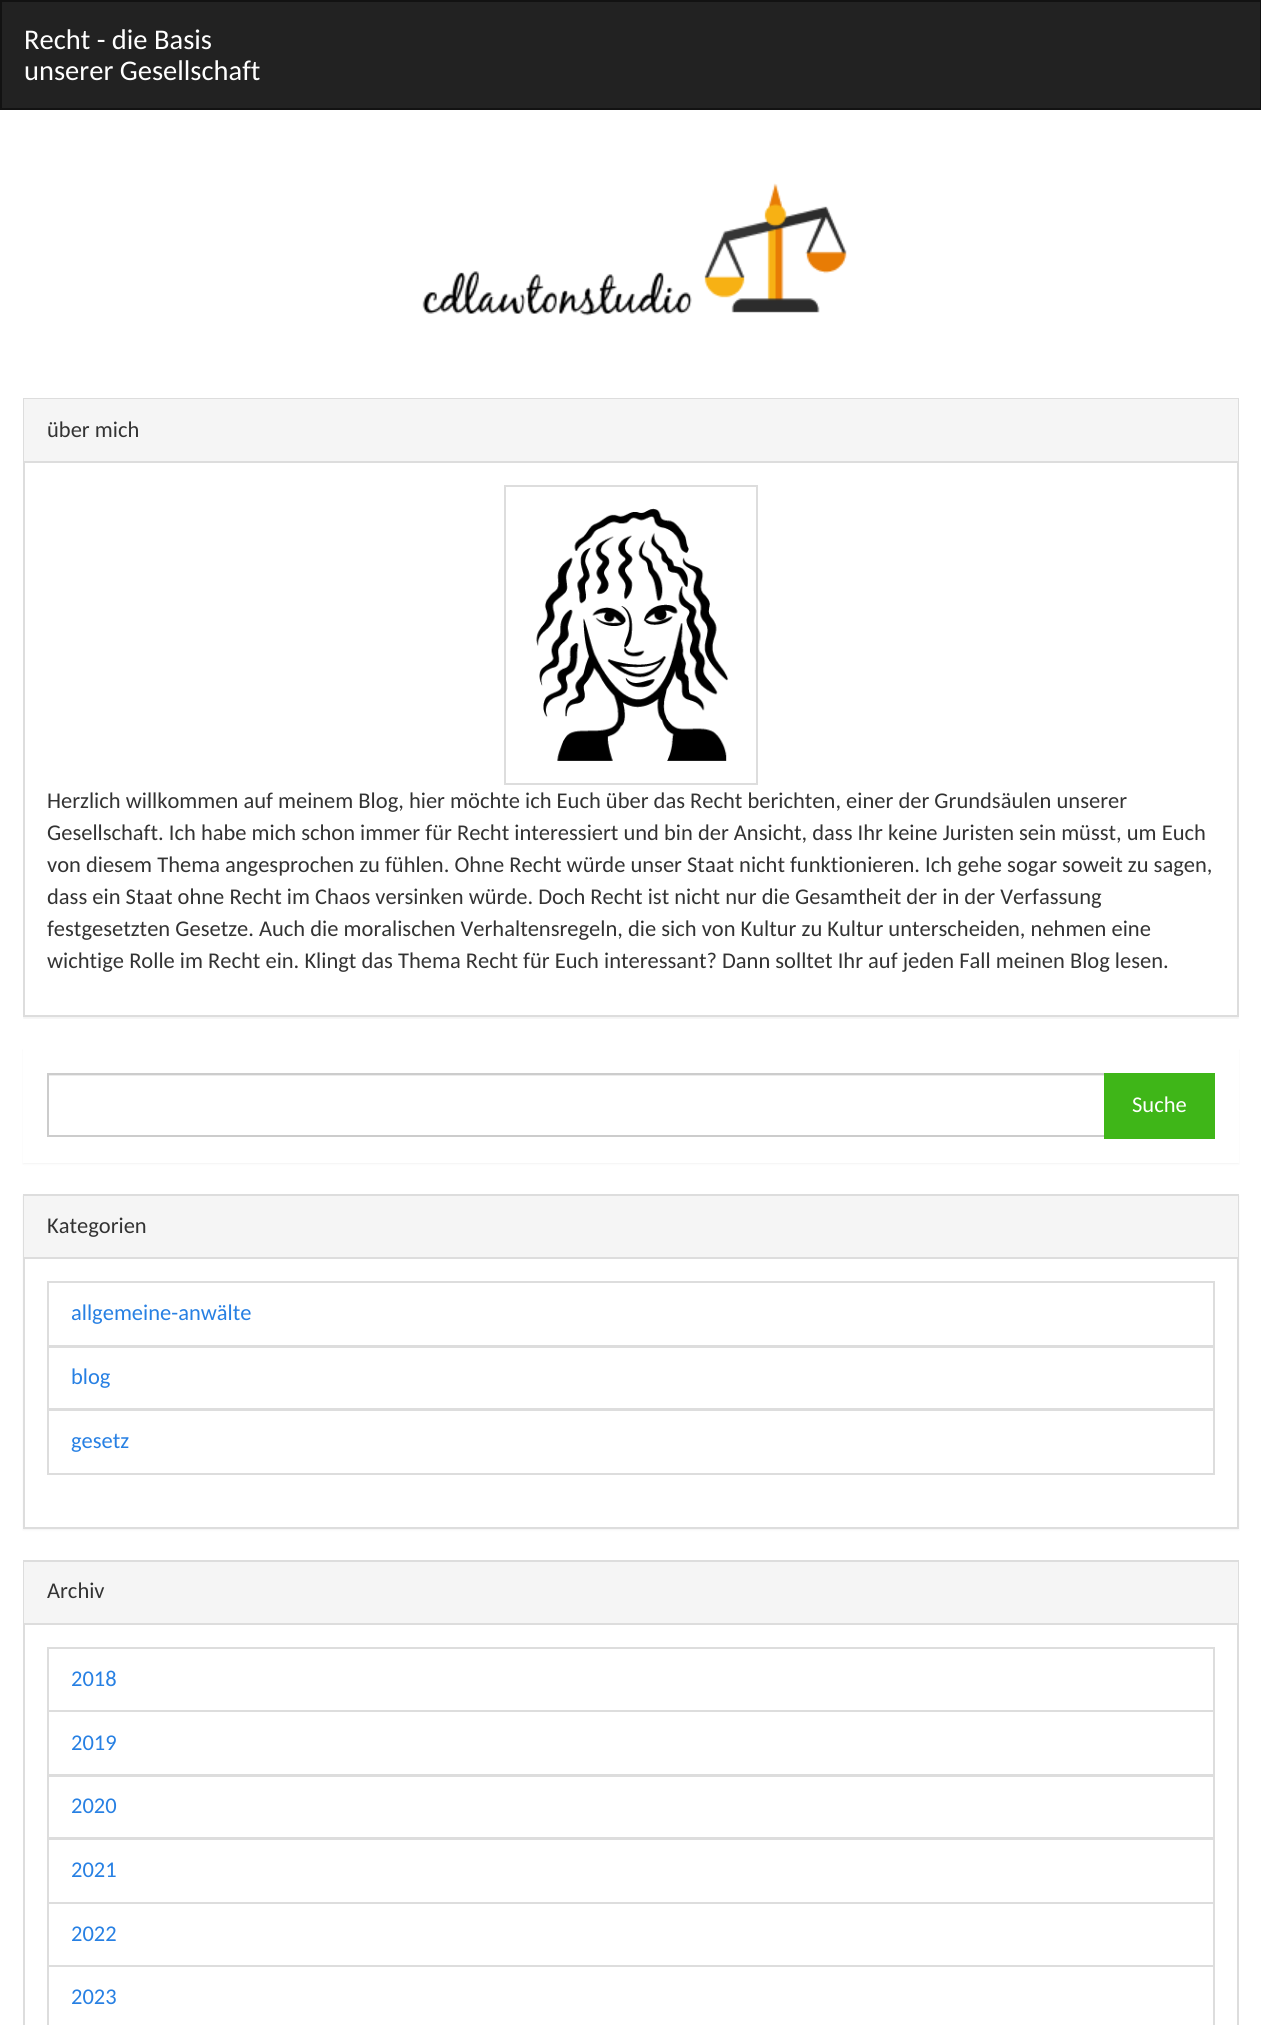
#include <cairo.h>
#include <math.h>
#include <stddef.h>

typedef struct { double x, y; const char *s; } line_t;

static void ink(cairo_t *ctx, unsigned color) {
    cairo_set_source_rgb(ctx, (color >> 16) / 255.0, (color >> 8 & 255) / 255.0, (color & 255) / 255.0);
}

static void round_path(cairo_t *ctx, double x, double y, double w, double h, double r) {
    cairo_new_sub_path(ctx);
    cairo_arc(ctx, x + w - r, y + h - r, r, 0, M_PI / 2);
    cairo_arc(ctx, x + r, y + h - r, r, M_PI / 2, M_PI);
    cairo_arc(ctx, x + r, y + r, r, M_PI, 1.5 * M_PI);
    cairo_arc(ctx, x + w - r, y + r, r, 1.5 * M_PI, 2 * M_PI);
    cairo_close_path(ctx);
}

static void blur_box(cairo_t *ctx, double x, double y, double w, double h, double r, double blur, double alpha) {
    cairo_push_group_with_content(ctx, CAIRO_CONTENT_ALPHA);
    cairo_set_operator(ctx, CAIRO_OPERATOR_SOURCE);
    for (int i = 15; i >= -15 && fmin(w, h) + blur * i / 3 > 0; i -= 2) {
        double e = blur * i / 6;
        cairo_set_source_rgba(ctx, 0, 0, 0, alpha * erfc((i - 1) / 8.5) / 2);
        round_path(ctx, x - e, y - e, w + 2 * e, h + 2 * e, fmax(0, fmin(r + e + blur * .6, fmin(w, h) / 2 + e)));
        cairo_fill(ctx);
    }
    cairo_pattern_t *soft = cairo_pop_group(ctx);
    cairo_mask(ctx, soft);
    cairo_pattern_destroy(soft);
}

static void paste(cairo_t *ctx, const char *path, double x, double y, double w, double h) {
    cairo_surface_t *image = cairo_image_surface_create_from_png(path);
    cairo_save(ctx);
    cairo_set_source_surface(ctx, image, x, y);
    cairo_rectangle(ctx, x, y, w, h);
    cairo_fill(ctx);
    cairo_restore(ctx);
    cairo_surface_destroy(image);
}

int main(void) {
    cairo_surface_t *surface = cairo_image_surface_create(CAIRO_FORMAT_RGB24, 1261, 2025);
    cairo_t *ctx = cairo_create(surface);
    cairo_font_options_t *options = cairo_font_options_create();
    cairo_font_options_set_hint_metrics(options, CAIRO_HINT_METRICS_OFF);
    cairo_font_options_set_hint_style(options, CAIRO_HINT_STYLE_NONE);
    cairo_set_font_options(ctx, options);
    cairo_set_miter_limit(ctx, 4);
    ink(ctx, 0xFFFFFF);
    cairo_paint(ctx);
    ink(ctx, 0x222222);
    cairo_rectangle(ctx, 1, 1, 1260, 108);
    cairo_fill_preserve(ctx);
    ink(ctx, 0x121212);
    cairo_stroke(ctx);
    cairo_select_font_face(ctx, "Carlito", CAIRO_FONT_SLANT_NORMAL, CAIRO_FONT_WEIGHT_NORMAL);
    cairo_set_font_size(ctx, 28.5);
    ink(ctx, 0xFFFFFF);
    cairo_move_to(ctx, 24, 49);
    cairo_show_text(ctx, "Recht - die Basis");
    cairo_move_to(ctx, 24, 80);
    cairo_show_text(ctx, "unserer Gesellschaft");
    paste(ctx, "media/1.png", 422, 183, 425, 133);
    cairo_save(ctx);
    cairo_rectangle(ctx, 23, 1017, 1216, 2);
    cairo_clip(ctx);
    ink(ctx, 0x000000);
    blur_box(ctx, 23, 399, 1216, 620, 0, 1, 0.05);
    cairo_restore(ctx);
    cairo_rectangle(ctx, 24, 399, 1214, 617);
    ink(ctx, 0xDDDDDD);
    cairo_stroke(ctx);
    ink(ctx, 0xF5F5F5);
    cairo_rectangle(ctx, 24, 399, 1214, 62);
    cairo_fill(ctx);
    ink(ctx, 0xDDDDDD);
    cairo_rectangle(ctx, 24, 461, 1214, 2);
    cairo_fill(ctx);
    cairo_set_font_size(ctx, 22.5);
    ink(ctx, 0x333333);
    cairo_move_to(ctx, 47, 437);
    cairo_show_text(ctx, "über mich");
    cairo_rectangle(ctx, 505, 486, 252, 298);
    ink(ctx, 0xDDDDDD);
    cairo_stroke(ctx);
    paste(ctx, "media/2.png", 536, 508, 193, 253);
    ink(ctx, 0x333333);
    {
        static const line_t items[] = {
            {47, 808, "Herzlich willkommen auf meinem Blog, hier möchte ich Euch über das Recht berichten, einer der Grundsäulen unserer"},
            {47, 840, "Gesellschaft. Ich habe mich schon immer für Recht interessiert und bin der Ansicht, dass Ihr keine Juristen sein müsst, um Euch"},
            {47, 872, "von diesem Thema angesprochen zu fühlen. Ohne Recht würde unser Staat nicht funktionieren. Ich gehe sogar soweit zu sagen,"},
            {47, 904, "dass ein Staat ohne Recht im Chaos versinken würde. Doch Recht ist nicht nur die Gesamtheit der in der Verfassung"},
            {47, 936, "festgesetzten Gesetze. Auch die moralischen Verhaltensregeln, die sich von Kultur zu Kultur unterscheiden, nehmen eine"},
            {47, 968, "wichtige Rolle im Recht ein. Klingt das Thema Recht für Euch interessant? Dann solltet Ihr auf jeden Fall meinen Blog lesen."},
        };
        for (size_t i = 0; i < sizeof items / sizeof *items; i++) {
            cairo_move_to(ctx, items[i].x, items[i].y);
            cairo_show_text(ctx, items[i].s);
        }
    }
    ink(ctx, 0x000000);
    blur_box(ctx, 23, 1050, 1216, 114, 0, 1, 0.05);
    ink(ctx, 0xFFFFFF);
    cairo_rectangle(ctx, 23, 1049, 1216, 114);
    cairo_fill(ctx);
    ink(ctx, 0xECECEC);
    cairo_rectangle(ctx, 48, 1075, 1056, 1);
    cairo_fill(ctx);
    cairo_rectangle(ctx, 48, 1074, 1057, 62);
    ink(ctx, 0xCCCCCC);
    cairo_stroke(ctx);
    ink(ctx, 0x3FB618);
    cairo_rectangle(ctx, 1104, 1073, 111, 66);
    cairo_fill(ctx);
    ink(ctx, 0xFFFFFF);
    cairo_move_to(ctx, 1132, 1112);
    cairo_show_text(ctx, "Suche");
    ink(ctx, 0x000000);
    blur_box(ctx, 23, 1196, 1216, 334, 0, 1, 0.05);
    ink(ctx, 0xFFFFFF);
    cairo_rectangle(ctx, 25, 1259, 1212, 268);
    cairo_fill(ctx);
    cairo_rectangle(ctx, 24, 1195, 1214, 333);
    ink(ctx, 0xDDDDDD);
    cairo_stroke(ctx);
    ink(ctx, 0xF5F5F5);
    cairo_rectangle(ctx, 24, 1196, 1214, 61);
    cairo_fill(ctx);
    ink(ctx, 0xDDDDDD);
    cairo_rectangle(ctx, 24, 1257, 1214, 2);
    cairo_fill(ctx);
    ink(ctx, 0x333333);
    cairo_move_to(ctx, 47, 1233);
    cairo_show_text(ctx, "Kategorien");
    cairo_rectangle(ctx, 48, 1282, 1166, 64);
    ink(ctx, 0xDDDDDD);
    cairo_stroke(ctx);
    ink(ctx, 0x2780E3);
    cairo_move_to(ctx, 71, 1320);
    cairo_show_text(ctx, "allgemeine-anwälte");
    cairo_rectangle(ctx, 48, 1347, 1166, 62);
    ink(ctx, 0xDDDDDD);
    cairo_stroke(ctx);
    ink(ctx, 0x2780E3);
    cairo_move_to(ctx, 71, 1384);
    cairo_show_text(ctx, "blog");
    cairo_rectangle(ctx, 48, 1410, 1166, 64);
    ink(ctx, 0xDDDDDD);
    cairo_stroke(ctx);
    ink(ctx, 0x2780E3);
    cairo_move_to(ctx, 71, 1448);
    cairo_show_text(ctx, "gesetz");
    cairo_rectangle(ctx, 24, 1561, 1214, 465);
    ink(ctx, 0xDDDDDD);
    cairo_stroke(ctx);
    ink(ctx, 0xF5F5F5);
    cairo_rectangle(ctx, 24, 1562, 1214, 61);
    cairo_fill(ctx);
    ink(ctx, 0xDDDDDD);
    cairo_rectangle(ctx, 24, 1623, 1214, 2);
    cairo_fill(ctx);
    ink(ctx, 0x333333);
    cairo_move_to(ctx, 47, 1598);
    cairo_show_text(ctx, "Archiv");
    cairo_rectangle(ctx, 48, 1648, 1166, 63);
    ink(ctx, 0xDDDDDD);
    cairo_stroke(ctx);
    ink(ctx, 0x2780E3);
    cairo_move_to(ctx, 71, 1686);
    cairo_show_text(ctx, "2018");
    cairo_rectangle(ctx, 48, 1711, 1166, 64);
    ink(ctx, 0xDDDDDD);
    cairo_stroke(ctx);
    ink(ctx, 0x2780E3);
    cairo_move_to(ctx, 71, 1750);
    cairo_show_text(ctx, "2019");
    cairo_rectangle(ctx, 48, 1776, 1166, 62);
    ink(ctx, 0xDDDDDD);
    cairo_stroke(ctx);
    ink(ctx, 0x2780E3);
    cairo_move_to(ctx, 71, 1813);
    cairo_show_text(ctx, "2020");
    cairo_rectangle(ctx, 48, 1839, 1166, 64);
    ink(ctx, 0xDDDDDD);
    cairo_stroke(ctx);
    ink(ctx, 0x2780E3);
    cairo_move_to(ctx, 71, 1877);
    cairo_show_text(ctx, "2021");
    cairo_rectangle(ctx, 48, 1903, 1166, 63);
    ink(ctx, 0xDDDDDD);
    cairo_stroke(ctx);
    ink(ctx, 0x2780E3);
    cairo_move_to(ctx, 71, 1941);
    cairo_show_text(ctx, "2022");
    cairo_rectangle(ctx, 48, 1966, 1166, 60);
    ink(ctx, 0xDDDDDD);
    cairo_stroke(ctx);
    ink(ctx, 0x2780E3);
    cairo_move_to(ctx, 71, 2004);
    cairo_show_text(ctx, "2023");
    cairo_surface_write_to_png(surface, "image.png");
    cairo_font_options_destroy(options);
    cairo_destroy(ctx);
    cairo_surface_destroy(surface);
    return 0;
}
